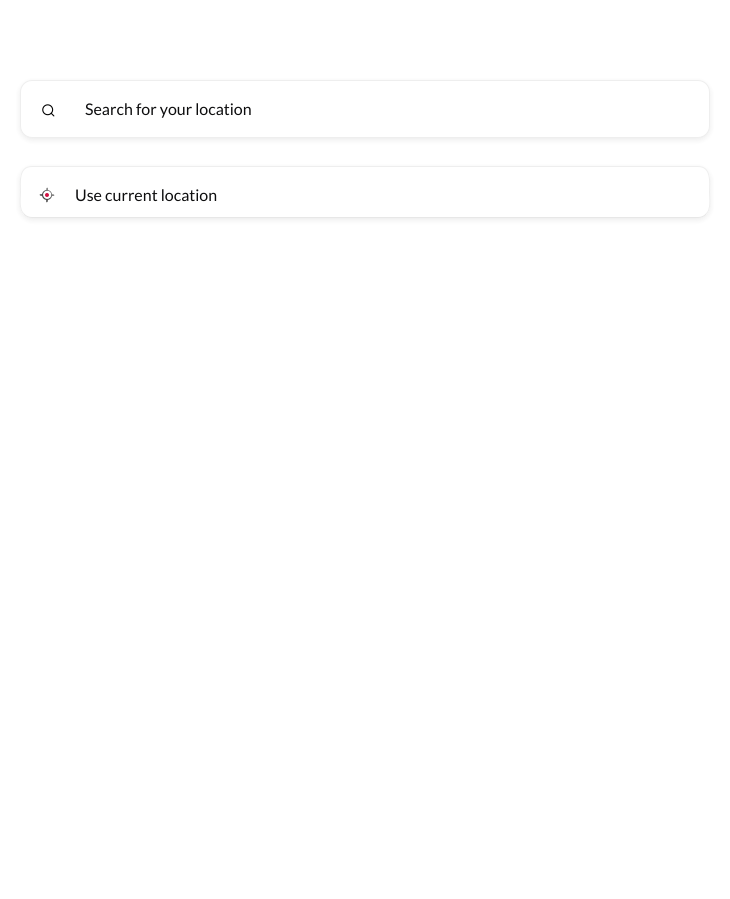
#include <cairo.h>
#include <math.h>
#include <stddef.h>


static void ink(cairo_t *ctx, unsigned color) {
    cairo_set_source_rgb(ctx, (color >> 16) / 255.0, (color >> 8 & 255) / 255.0, (color & 255) / 255.0);
}

static void round_path(cairo_t *ctx, double x, double y, double w, double h, double r) {
    cairo_new_sub_path(ctx);
    cairo_arc(ctx, x + w - r, y + h - r, r, 0, M_PI / 2);
    cairo_arc(ctx, x + r, y + h - r, r, M_PI / 2, M_PI);
    cairo_arc(ctx, x + r, y + r, r, M_PI, 1.5 * M_PI);
    cairo_arc(ctx, x + w - r, y + r, r, 1.5 * M_PI, 2 * M_PI);
    cairo_close_path(ctx);
}

static void blur_box(cairo_t *ctx, double x, double y, double w, double h, double r, double blur, double alpha) {
    cairo_push_group_with_content(ctx, CAIRO_CONTENT_ALPHA);
    cairo_set_operator(ctx, CAIRO_OPERATOR_SOURCE);
    for (int i = 15; i >= -15 && fmin(w, h) + blur * i / 3 > 0; i -= 2) {
        double e = blur * i / 6;
        cairo_set_source_rgba(ctx, 0, 0, 0, alpha * erfc((i - 1) / 8.5) / 2);
        round_path(ctx, x - e, y - e, w + 2 * e, h + 2 * e, fmax(0, fmin(r + e + blur * .6, fmin(w, h) / 2 + e)));
        cairo_fill(ctx);
    }
    cairo_pattern_t *soft = cairo_pop_group(ctx);
    cairo_mask(ctx, soft);
    cairo_pattern_destroy(soft);
}

static void paste(cairo_t *ctx, const char *path, double x, double y, double w, double h) {
    cairo_surface_t *image = cairo_image_surface_create_from_png(path);
    cairo_save(ctx);
    cairo_set_source_surface(ctx, image, x, y);
    cairo_rectangle(ctx, x, y, w, h);
    cairo_fill(ctx);
    cairo_restore(ctx);
    cairo_surface_destroy(image);
}

int main(void) {
    cairo_surface_t *surface = cairo_image_surface_create(CAIRO_FORMAT_RGB24, 730, 899);
    cairo_t *ctx = cairo_create(surface);
    cairo_font_options_t *options = cairo_font_options_create();
    cairo_font_options_set_hint_metrics(options, CAIRO_HINT_METRICS_OFF);
    cairo_font_options_set_hint_style(options, CAIRO_HINT_STYLE_NONE);
    cairo_set_font_options(ctx, options);
    cairo_set_miter_limit(ctx, 4);
    ink(ctx, 0xFFFFFF);
    cairo_paint(ctx);
    ink(ctx, 0x000000);
    blur_box(ctx, 20, 82, 690, 58, 12, 3, 0.08);
    ink(ctx, 0xFFFFFF);
    round_path(ctx, 20.5, 80.5, 689, 57, 11.5);
    cairo_fill_preserve(ctx);
    ink(ctx, 0xEEEEEE);
    cairo_set_line_width(ctx, 1);
    cairo_stroke(ctx);
    paste(ctx, "media/1.png", 42, 104, 13, 13);
    cairo_select_font_face(ctx, "Lato", CAIRO_FONT_SLANT_NORMAL, CAIRO_FONT_WEIGHT_NORMAL);
    cairo_set_font_size(ctx, 16);
    ink(ctx, 0x0D0D0E);
    cairo_move_to(ctx, 85, 115);
    cairo_show_text(ctx, "Search for your location");
    ink(ctx, 0x000000);
    blur_box(ctx, 20, 168, 690, 52, 12, 3, 0.08);
    ink(ctx, 0xFFFFFF);
    round_path(ctx, 20, 166, 690, 52, 12);
    cairo_fill(ctx);
    cairo_new_path(ctx);
    cairo_move_to(ctx, 706, 214);
    cairo_curve_to(ctx, 704, 216.5, 701, 217.5, 698, 217.5);
    cairo_line_to(ctx, 32, 217.5);
    cairo_curve_to(ctx, 29, 217.5, 26, 216.5, 24, 214);
    ink(ctx, 0xE7E7E7);
    cairo_stroke(ctx);
    cairo_new_path(ctx);
    cairo_move_to(ctx, 24, 214);
    cairo_curve_to(ctx, 18.5, 209, 20.5, 198.5, 20.5, 192);
    cairo_curve_to(ctx, 20.5, 183, 18, 166.5, 32, 166.5);
    cairo_line_to(ctx, 698, 166.5);
    cairo_curve_to(ctx, 712, 166.5, 709.5, 183, 709.5, 192);
    cairo_curve_to(ctx, 709.5, 198.5, 711.5, 209, 706, 214);
    ink(ctx, 0xEEEEEE);
    cairo_stroke(ctx);
    paste(ctx, "media/2.png", 39, 187, 16, 16);
    ink(ctx, 0x0D0D0E);
    cairo_move_to(ctx, 75, 201);
    cairo_show_text(ctx, "Use current location");
    cairo_surface_write_to_png(surface, "image.png");
    cairo_font_options_destroy(options);
    cairo_destroy(ctx);
    cairo_surface_destroy(surface);
    return 0;
}
